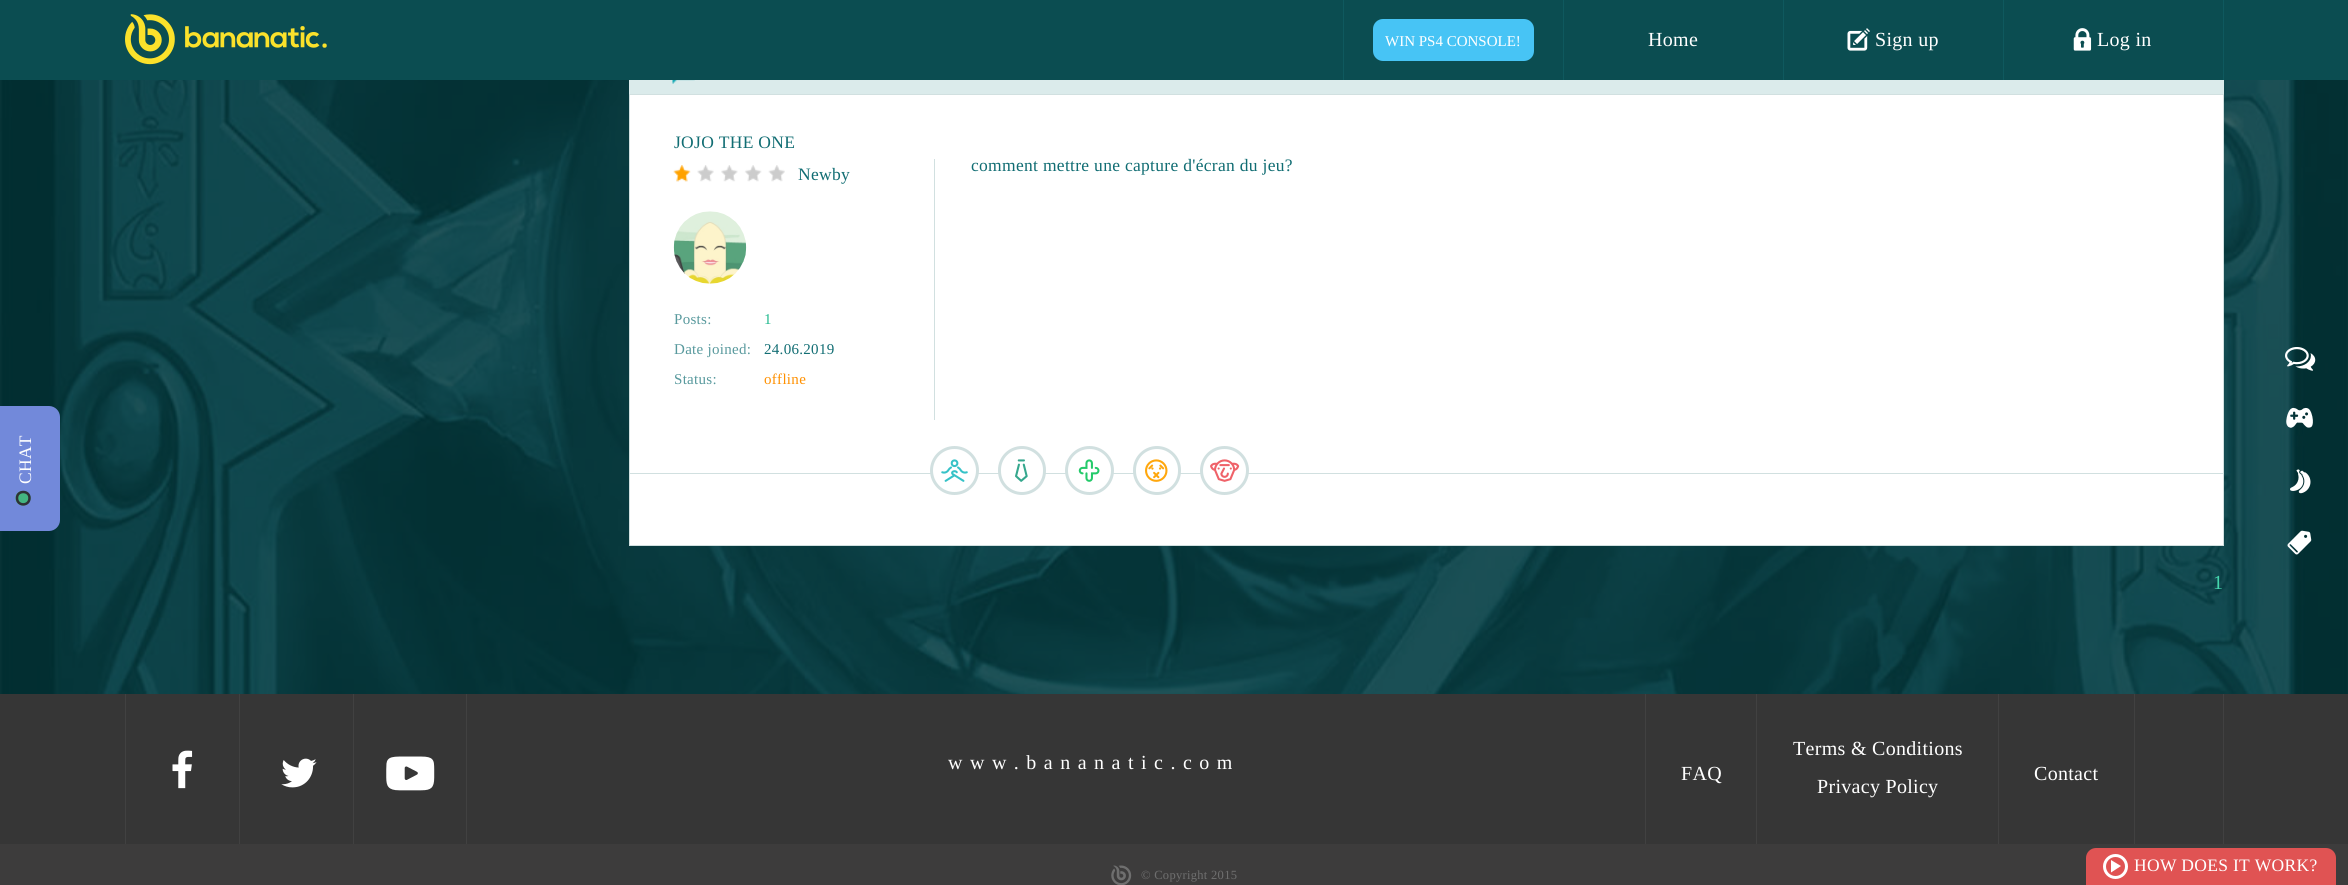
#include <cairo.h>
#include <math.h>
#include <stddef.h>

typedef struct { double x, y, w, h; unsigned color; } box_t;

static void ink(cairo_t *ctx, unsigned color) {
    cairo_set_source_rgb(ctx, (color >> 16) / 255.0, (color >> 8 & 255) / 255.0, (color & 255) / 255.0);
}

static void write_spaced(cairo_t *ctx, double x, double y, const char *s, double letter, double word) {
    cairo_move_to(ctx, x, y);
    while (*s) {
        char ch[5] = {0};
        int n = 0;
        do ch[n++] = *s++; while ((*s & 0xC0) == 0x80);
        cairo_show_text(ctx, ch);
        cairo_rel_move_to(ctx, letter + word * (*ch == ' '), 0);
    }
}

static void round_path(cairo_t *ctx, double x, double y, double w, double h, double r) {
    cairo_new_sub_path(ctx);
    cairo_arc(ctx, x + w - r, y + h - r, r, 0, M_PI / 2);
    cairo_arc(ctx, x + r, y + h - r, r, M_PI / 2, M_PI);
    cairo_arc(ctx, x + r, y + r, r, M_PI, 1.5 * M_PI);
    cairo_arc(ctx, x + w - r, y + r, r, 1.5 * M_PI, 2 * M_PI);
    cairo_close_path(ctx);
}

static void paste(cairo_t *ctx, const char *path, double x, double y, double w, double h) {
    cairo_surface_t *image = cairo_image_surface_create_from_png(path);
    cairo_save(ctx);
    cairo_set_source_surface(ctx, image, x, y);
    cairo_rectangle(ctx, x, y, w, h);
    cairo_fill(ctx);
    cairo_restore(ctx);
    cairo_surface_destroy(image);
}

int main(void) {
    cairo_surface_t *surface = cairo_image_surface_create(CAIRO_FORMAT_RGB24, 2348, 885);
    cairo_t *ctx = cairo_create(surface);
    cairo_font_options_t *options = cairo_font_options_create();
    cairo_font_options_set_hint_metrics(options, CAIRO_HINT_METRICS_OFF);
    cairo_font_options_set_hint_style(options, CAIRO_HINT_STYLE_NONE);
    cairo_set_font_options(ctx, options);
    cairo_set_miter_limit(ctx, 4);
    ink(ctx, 0x363636);
    cairo_paint(ctx);
    ink(ctx, 0x0B4D51);
    cairo_rectangle(ctx, 0, 0, 2348, 80);
    cairo_fill(ctx);
    paste(ctx, "media/1.png", 125, 14, 202, 51);
    ink(ctx, 0x0F595E);
    cairo_rectangle(ctx, 2223, 0, 1, 80);
    cairo_fill(ctx);
    cairo_rectangle(ctx, 1343, 0, 1, 80);
    cairo_fill(ctx);
    ink(ctx, 0x47C4F5);
    round_path(ctx, 1373, 19, 161, 42, 10);
    cairo_fill(ctx);
    cairo_select_font_face(ctx, "Liberation Serif", CAIRO_FONT_SLANT_NORMAL, CAIRO_FONT_WEIGHT_NORMAL);
    cairo_set_font_size(ctx, 15);
    ink(ctx, 0xFFFFFF);
    cairo_move_to(ctx, 1385, 46);
    cairo_show_text(ctx, "WIN PS4 CONSOLE!");
    ink(ctx, 0x0F595E);
    cairo_rectangle(ctx, 1563, 0, 1, 80);
    cairo_fill(ctx);
    cairo_set_font_size(ctx, 20);
    ink(ctx, 0xFFFFFF);
    write_spaced(ctx, 1648, 46, "Home", 0.3, 0);
    ink(ctx, 0x0F595E);
    cairo_rectangle(ctx, 1783, 0, 1, 80);
    cairo_fill(ctx);
    paste(ctx, "media/2.png", 1847, 28, 23, 23);
    ink(ctx, 0xFFFFFF);
    write_spaced(ctx, 1875, 46, "Sign up", 0.3, 0);
    ink(ctx, 0x0F595E);
    cairo_rectangle(ctx, 2003, 0, 1, 80);
    cairo_fill(ctx);
    paste(ctx, "media/3.png", 2073, 28, 19, 23);
    ink(ctx, 0xFFFFFF);
    write_spaced(ctx, 2097, 46, "Log in", 0.3, 0);
    paste(ctx, "media/4.png", 0, 80, 2348, 614);
    ink(ctx, 0x7289DA);
    cairo_new_path(ctx);
    cairo_move_to(ctx, 0, 406);
    cairo_line_to(ctx, 49, 406);
    cairo_curve_to(ctx, 55, 406, 60, 411, 60, 417);
    cairo_line_to(ctx, 60, 520);
    cairo_curve_to(ctx, 60, 526, 55, 531, 49, 531);
    cairo_line_to(ctx, 0, 531);
    cairo_close_path(ctx);
    cairo_fill(ctx);
    cairo_set_font_size(ctx, 17.5);
    ink(ctx, 0xFFFFFF);
    cairo_save(ctx);
    cairo_translate(ctx, 31, 484);
    cairo_rotate(ctx, -90 * M_PI / 180);
    write_spaced(ctx, 0, 0, "CHAT", 0.3, 0);
    cairo_restore(ctx);
    ink(ctx, 0x43B581);
    cairo_new_path(ctx);
    cairo_move_to(ctx, 15.5, 498);
    cairo_curve_to(ctx, 15.5, 488.5, 30.5, 488.5, 30.5, 498);
    cairo_curve_to(ctx, 30.5, 508, 15.5, 508, 15.5, 498);
    cairo_close_path(ctx);
    cairo_fill(ctx);
    cairo_new_path(ctx);
    cairo_move_to(ctx, 17, 498);
    cairo_curve_to(ctx, 17, 490, 29.5, 490, 29.5, 498);
    cairo_curve_to(ctx, 29.5, 506.5, 17, 506.5, 17, 498);
    cairo_close_path(ctx);
    ink(ctx, 0x2F3136);
    cairo_set_line_width(ctx, 2.5);
    cairo_stroke(ctx);
    ink(ctx, 0xDBEBEB);
    cairo_rectangle(ctx, 629, 80, 1595, 14);
    cairo_fill(ctx);
    paste(ctx, "media/5.png", 672, 80, 23, 4);
    {
        static const box_t items[] = {
            {629, 94, 1595, 1, 0xD1E0E0},
            {630, 95, 1593, 450, 0xFFFFFF},
            {2223, 95, 1, 451, 0xD1E0E0},
            {629, 545, 1595, 1, 0xD1E0E0},
            {629, 95, 1, 451, 0xD1E0E0},
        };
        for (size_t i = 0; i < sizeof items / sizeof *items; i++) {
            ink(ctx, items[i].color);
            cairo_rectangle(ctx, items[i].x, items[i].y, items[i].w, items[i].h);
            cairo_fill(ctx);
        }
    }
    ink(ctx, 0x116D73);
    write_spaced(ctx, 674, 148, "JOJO THE ONE", 0.3, 0);
    paste(ctx, "media/6.png", 676, 165, 109, 17);
    ink(ctx, 0xFFFFFF);
    cairo_rectangle(ctx, 676, 165, 14, 16);
    cairo_fill(ctx);
    paste(ctx, "media/7.png", 673, 165, 18, 17);
    ink(ctx, 0x116D73);
    write_spaced(ctx, 798, 180, "Newby", 0.3, 0);
    paste(ctx, "media/8.png", 673, 211, 74, 73);
    cairo_set_font_size(ctx, 15);
    ink(ctx, 0x58999D);
    write_spaced(ctx, 674, 324, "Posts:", 0.3, 0);
    ink(ctx, 0x23BA8F);
    write_spaced(ctx, 764, 324, "1", 0.3, 0);
    ink(ctx, 0x58999D);
    write_spaced(ctx, 674, 354, "Date joined:", 0.3, 0);
    ink(ctx, 0x116D73);
    write_spaced(ctx, 764, 354, "24.06.2019", 0.3, 0);
    ink(ctx, 0x58999D);
    write_spaced(ctx, 674, 384, "Status:", 0.3, 0);
    ink(ctx, 0xFF9000);
    write_spaced(ctx, 764, 384, "offline", 0.3, 0);
    ink(ctx, 0xD1E0E0);
    cairo_rectangle(ctx, 934, 159, 1, 261);
    cairo_fill(ctx);
    cairo_set_font_size(ctx, 17.5);
    ink(ctx, 0x116D73);
    write_spaced(ctx, 971, 171, "comment mettre une capture d'écran du jeu?", 0.3, 0);
    ink(ctx, 0xD1E0E0);
    cairo_rectangle(ctx, 630, 473, 1593, 1);
    cairo_fill(ctx);
    ink(ctx, 0xFFFFFF);
    cairo_arc(ctx, 954.5, 470.5, 23, 0, 2 * M_PI);
    cairo_fill_preserve(ctx);
    ink(ctx, 0xD1E0E0);
    cairo_set_line_width(ctx, 3);
    cairo_stroke(ctx);
    paste(ctx, "media/9.png", 941, 459, 27, 23);
    ink(ctx, 0xFFFFFF);
    round_path(ctx, 999.5, 447.5, 45, 46, 22.5);
    cairo_fill_preserve(ctx);
    ink(ctx, 0xD1E0E0);
    cairo_stroke(ctx);
    paste(ctx, "media/10.png", 1015, 459, 13, 23);
    ink(ctx, 0xFFFFFF);
    cairo_arc(ctx, 1089.5, 470.5, 23, 0, 2 * M_PI);
    cairo_fill_preserve(ctx);
    ink(ctx, 0xD1E0E0);
    cairo_stroke(ctx);
    paste(ctx, "media/11.png", 1078, 459, 22, 23);
    ink(ctx, 0xFFFFFF);
    round_path(ctx, 1134.5, 447.5, 45, 46, 22.5);
    cairo_fill_preserve(ctx);
    ink(ctx, 0xD1E0E0);
    cairo_stroke(ctx);
    paste(ctx, "media/12.png", 1145, 459, 23, 23);
    ink(ctx, 0xFFFFFF);
    cairo_arc(ctx, 1224.5, 470.5, 23, 0, 2 * M_PI);
    cairo_fill_preserve(ctx);
    ink(ctx, 0xD1E0E0);
    cairo_stroke(ctx);
    paste(ctx, "media/13.png", 1210, 459, 30, 23);
    cairo_set_font_size(ctx, 20);
    ink(ctx, 0x45D7AE);
    write_spaced(ctx, 2213, 589, "1", 0.3, 0);
    paste(ctx, "media/14.png", 2285, 347, 31, 24);
    paste(ctx, "media/15.png", 2286, 407, 27, 21);
    paste(ctx, "media/16.png", 2290, 469, 21, 25);
    paste(ctx, "media/17.png", 2287, 530, 25, 25);
    ink(ctx, 0x414141);
    cairo_rectangle(ctx, 125, 694, 1, 150);
    cairo_fill(ctx);
    cairo_rectangle(ctx, 239, 694, 1, 150);
    cairo_fill(ctx);
    paste(ctx, "media/18.png", 172, 750, 21, 39);
    cairo_rectangle(ctx, 353, 694, 1, 150);
    cairo_fill(ctx);
    paste(ctx, "media/19.png", 281, 758, 36, 30);
    cairo_rectangle(ctx, 466, 694, 1, 150);
    cairo_fill(ctx);
    paste(ctx, "media/20.png", 386, 756, 49, 35);
    ink(ctx, 0xFFFFFF);
    write_spaced(ctx, 948, 769, "www.bananatic.com", 7.5, 0);
    ink(ctx, 0x414141);
    cairo_rectangle(ctx, 1645, 694, 1, 150);
    cairo_fill(ctx);
    cairo_rectangle(ctx, 1756, 694, 1, 150);
    cairo_fill(ctx);
    ink(ctx, 0xFFFFFF);
    write_spaced(ctx, 1681, 780, "FAQ", 0.3, 0);
    ink(ctx, 0x414141);
    cairo_rectangle(ctx, 1998, 694, 1, 150);
    cairo_fill(ctx);
    ink(ctx, 0xFFFFFF);
    write_spaced(ctx, 1793, 755, "Terms & Conditions", 0.3, 0);
    write_spaced(ctx, 1817, 793, "Privacy Policy", 0.3, 0);
    ink(ctx, 0x414141);
    cairo_rectangle(ctx, 2134, 694, 1, 150);
    cairo_fill(ctx);
    ink(ctx, 0xFFFFFF);
    write_spaced(ctx, 2034, 780, "Contact", 0.3, 0);
    ink(ctx, 0x414141);
    cairo_rectangle(ctx, 2223, 694, 1, 150);
    cairo_fill(ctx);
    ink(ctx, 0x3D3C3C);
    cairo_rectangle(ctx, 0, 844, 2348, 41);
    cairo_fill(ctx);
    paste(ctx, "media/21.png", 1111, 865, 21, 20);
    cairo_set_font_size(ctx, 12.5);
    ink(ctx, 0x6F6F6F);
    write_spaced(ctx, 1141, 879, "© Copyright 2015", 0.3, 0);
    ink(ctx, 0xE05353);
    cairo_new_path(ctx);
    cairo_move_to(ctx, 2096, 848);
    cairo_line_to(ctx, 2326, 848);
    cairo_curve_to(ctx, 2331.5, 848, 2336, 852.5, 2336, 858);
    cairo_line_to(ctx, 2336, 885);
    cairo_line_to(ctx, 2086, 885);
    cairo_line_to(ctx, 2086, 858);
    cairo_curve_to(ctx, 2086, 852.5, 2090.5, 848, 2096, 848);
    cairo_close_path(ctx);
    cairo_fill(ctx);
    ink(ctx, 0xFFFFFF);
    cairo_new_path(ctx);
    cairo_move_to(ctx, 2111, 872.5);
    cairo_line_to(ctx, 2111, 860);
    cairo_line_to(ctx, 2121, 866);
    cairo_close_path(ctx);
    cairo_fill(ctx);
    cairo_arc(ctx, 2115.5, 866.5, 11, 0, 2 * M_PI);
    cairo_stroke(ctx);
    cairo_set_font_size(ctx, 17.5);
    write_spaced(ctx, 2134, 871, "HOW DOES IT WORK?", 0.3, 0);
    cairo_surface_write_to_png(surface, "image.png");
    cairo_font_options_destroy(options);
    cairo_destroy(ctx);
    cairo_surface_destroy(surface);
    return 0;
}
